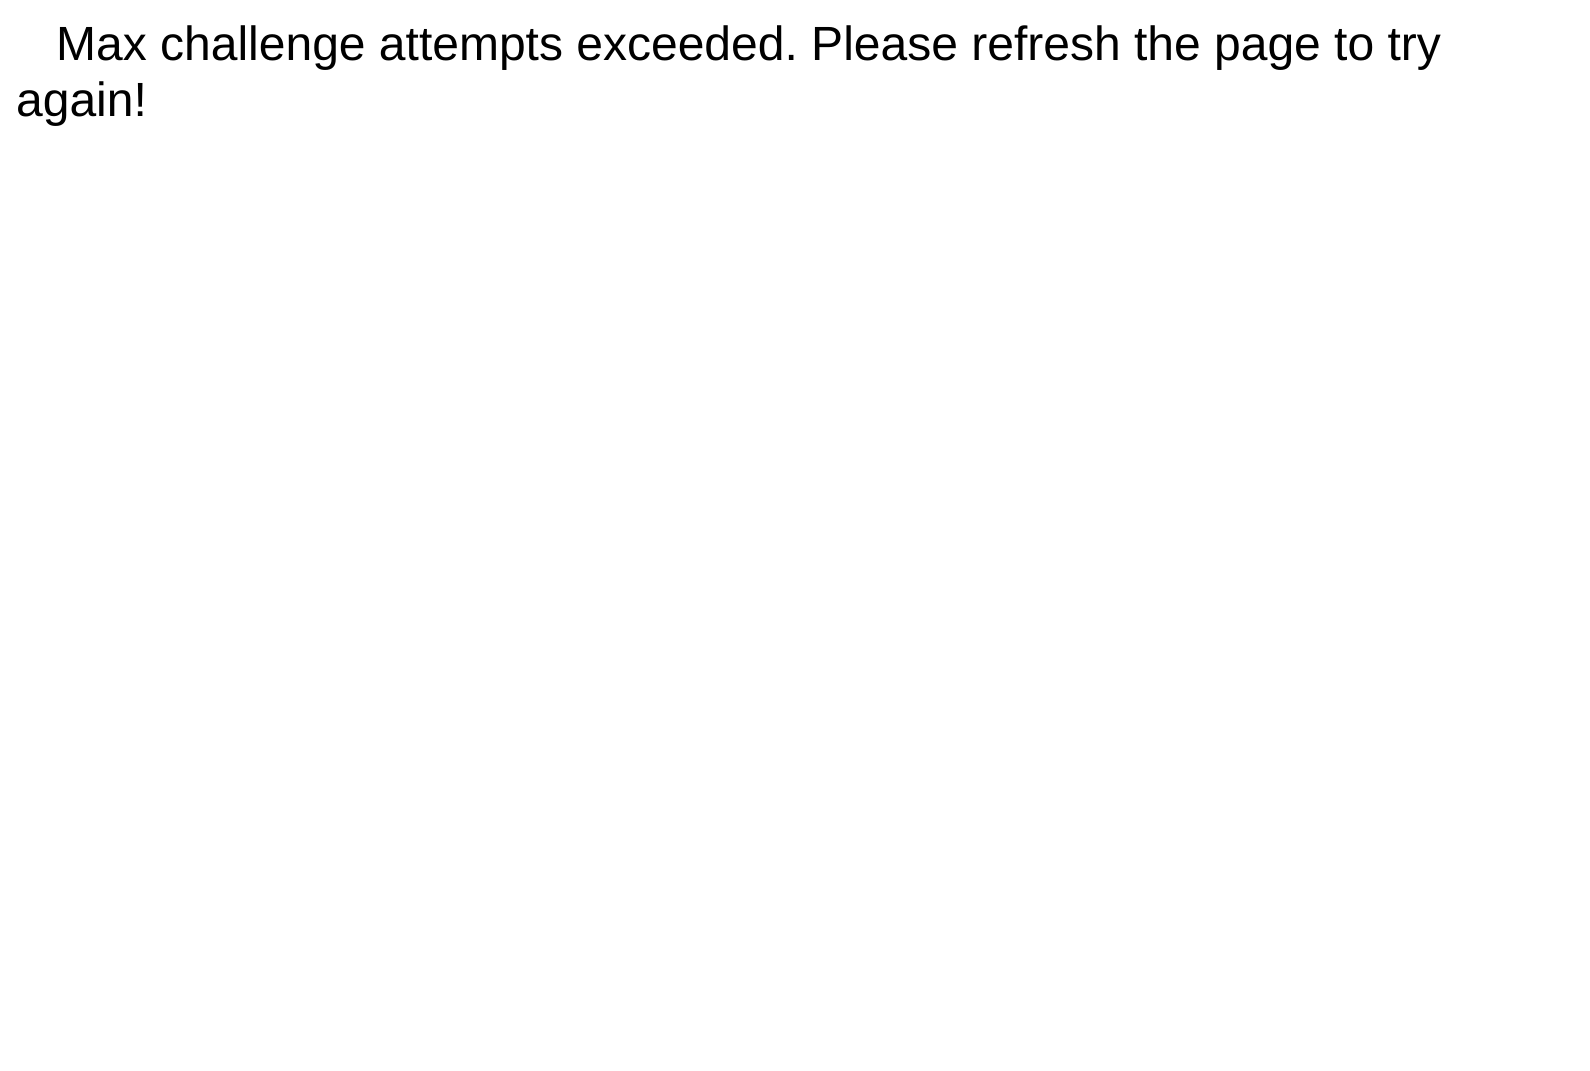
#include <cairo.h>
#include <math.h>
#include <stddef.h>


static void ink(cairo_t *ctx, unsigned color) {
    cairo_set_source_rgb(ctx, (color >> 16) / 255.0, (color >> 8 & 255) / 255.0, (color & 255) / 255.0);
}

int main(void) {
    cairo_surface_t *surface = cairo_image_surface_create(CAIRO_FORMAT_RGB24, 1590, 1071);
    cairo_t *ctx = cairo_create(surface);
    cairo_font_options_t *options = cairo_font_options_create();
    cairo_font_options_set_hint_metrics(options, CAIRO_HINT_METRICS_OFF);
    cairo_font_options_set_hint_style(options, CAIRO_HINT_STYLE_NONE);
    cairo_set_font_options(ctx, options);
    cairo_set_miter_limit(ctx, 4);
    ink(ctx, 0xFFFFFF);
    cairo_paint(ctx);
    cairo_select_font_face(ctx, "Liberation Sans", CAIRO_FONT_SLANT_NORMAL, CAIRO_FONT_WEIGHT_NORMAL);
    cairo_set_font_size(ctx, 48);
    ink(ctx, 0x000000);
    cairo_move_to(ctx, 56, 60);
    cairo_show_text(ctx, "Max challenge attempts exceeded. Please refresh the page to try");
    cairo_move_to(ctx, 16, 116);
    cairo_show_text(ctx, "again!");
    cairo_surface_write_to_png(surface, "image.png");
    cairo_font_options_destroy(options);
    cairo_destroy(ctx);
    cairo_surface_destroy(surface);
    return 0;
}
